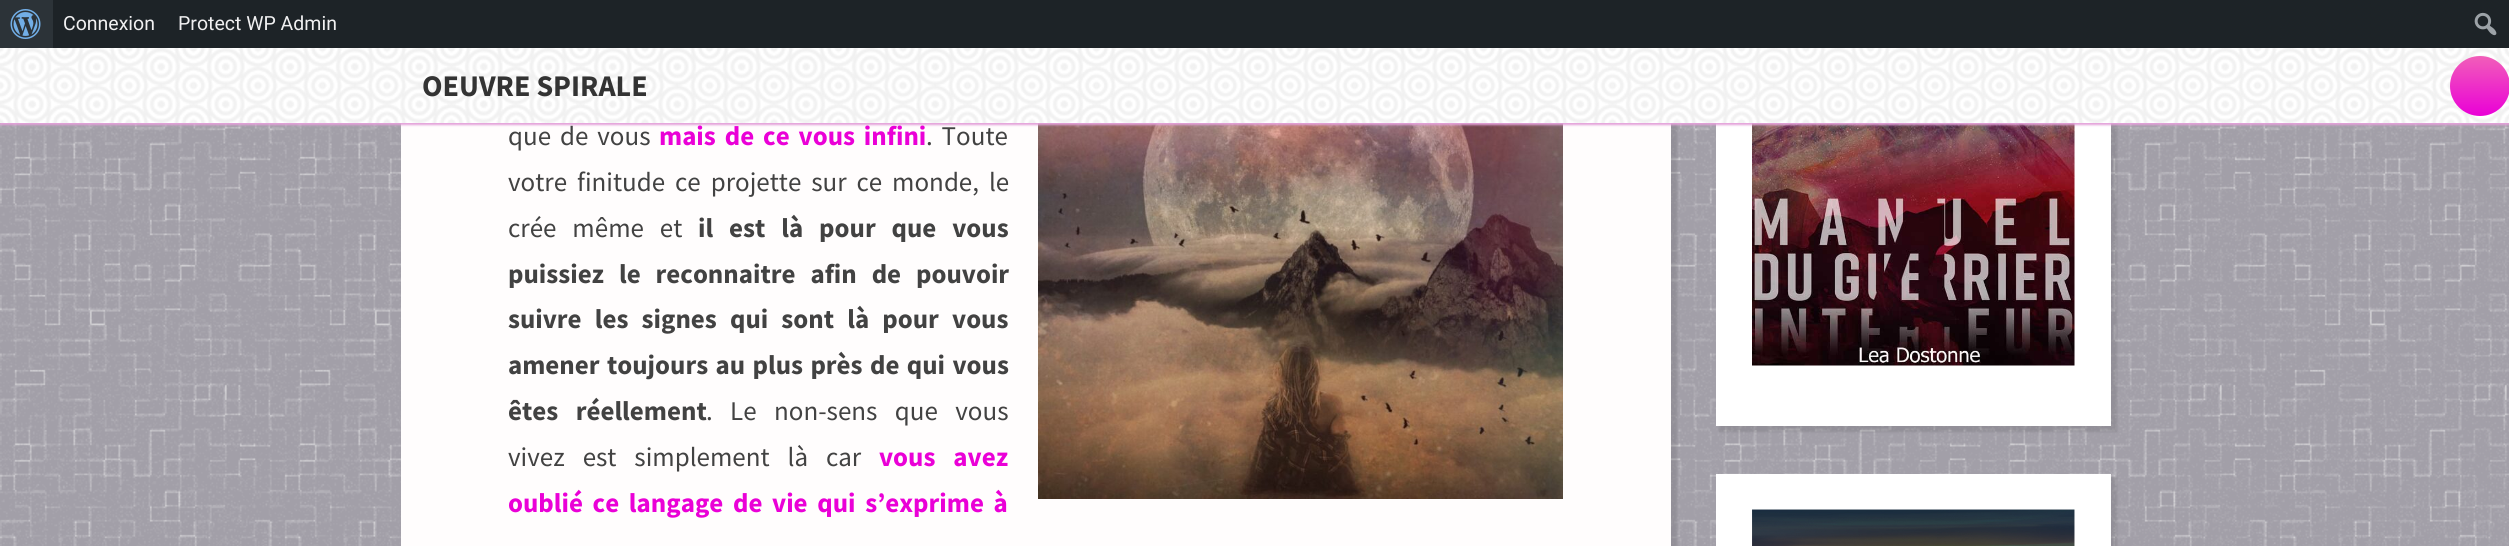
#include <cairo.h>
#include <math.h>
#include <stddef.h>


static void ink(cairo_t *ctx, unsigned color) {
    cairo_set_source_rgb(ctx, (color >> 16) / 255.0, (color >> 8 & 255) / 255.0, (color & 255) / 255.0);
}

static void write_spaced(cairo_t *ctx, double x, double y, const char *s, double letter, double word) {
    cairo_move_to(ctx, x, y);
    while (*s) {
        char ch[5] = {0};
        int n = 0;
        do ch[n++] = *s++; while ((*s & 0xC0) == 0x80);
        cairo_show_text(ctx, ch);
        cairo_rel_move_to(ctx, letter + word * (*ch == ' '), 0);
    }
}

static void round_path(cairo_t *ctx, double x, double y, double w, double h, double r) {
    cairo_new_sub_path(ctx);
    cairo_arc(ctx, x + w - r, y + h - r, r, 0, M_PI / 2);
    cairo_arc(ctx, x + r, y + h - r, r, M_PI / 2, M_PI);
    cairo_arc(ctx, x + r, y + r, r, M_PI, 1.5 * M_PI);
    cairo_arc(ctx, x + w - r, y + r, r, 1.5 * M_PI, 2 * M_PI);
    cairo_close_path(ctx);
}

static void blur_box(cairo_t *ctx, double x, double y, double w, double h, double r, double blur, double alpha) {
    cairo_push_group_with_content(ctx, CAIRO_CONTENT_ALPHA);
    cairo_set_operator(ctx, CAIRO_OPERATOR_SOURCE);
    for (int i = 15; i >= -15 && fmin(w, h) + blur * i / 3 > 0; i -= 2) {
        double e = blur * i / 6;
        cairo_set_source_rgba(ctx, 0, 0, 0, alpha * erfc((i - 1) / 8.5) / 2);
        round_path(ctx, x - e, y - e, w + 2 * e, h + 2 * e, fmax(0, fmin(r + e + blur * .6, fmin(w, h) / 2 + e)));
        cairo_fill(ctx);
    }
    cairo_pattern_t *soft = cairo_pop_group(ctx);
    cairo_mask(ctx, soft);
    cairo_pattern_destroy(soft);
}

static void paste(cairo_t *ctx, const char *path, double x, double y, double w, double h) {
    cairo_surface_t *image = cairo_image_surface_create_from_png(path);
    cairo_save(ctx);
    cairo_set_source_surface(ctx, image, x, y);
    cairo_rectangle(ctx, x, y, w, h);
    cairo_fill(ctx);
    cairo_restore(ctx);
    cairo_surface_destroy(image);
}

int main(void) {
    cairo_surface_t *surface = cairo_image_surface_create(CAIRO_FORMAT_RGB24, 2509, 546);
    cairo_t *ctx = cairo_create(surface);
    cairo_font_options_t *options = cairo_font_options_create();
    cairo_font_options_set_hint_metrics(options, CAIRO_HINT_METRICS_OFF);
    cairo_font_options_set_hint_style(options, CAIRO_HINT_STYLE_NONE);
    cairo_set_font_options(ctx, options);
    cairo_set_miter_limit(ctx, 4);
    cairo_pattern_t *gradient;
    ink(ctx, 0xA29FA8);
    cairo_paint(ctx);
    paste(ctx, "media/1.png", 0, 123, 2509, 423);
    ink(ctx, 0x000000);
    blur_box(ctx, 404, -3, 1273, 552, 0, 1, 0.1);
    ink(ctx, 0xFFFDFD);
    cairo_rectangle(ctx, 401, 123, 1270, 423);
    cairo_fill(ctx);
    paste(ctx, "media/5.png", 1038, 123, 525, 376);
    ink(ctx, 0x000000);
    blur_box(ctx, 1719, -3, 398, 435, 0, 1, 0.1);
    ink(ctx, 0xFFFFFF);
    cairo_rectangle(ctx, 1716, 123, 395, 303);
    cairo_fill(ctx);
    paste(ctx, "media/6.png", 1752, 123, 323, 243);
    ink(ctx, 0xE3A1D9);
    blur_box(ctx, 0, 50, 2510, 75, 0, 1, 1);
    ink(ctx, 0x1D2327);
    cairo_rectangle(ctx, 53, 0, 2456, 48);
    cairo_fill(ctx);
    ink(ctx, 0x2C3338);
    cairo_rectangle(ctx, 0, 0, 53, 48);
    cairo_fill(ctx);
    paste(ctx, "media/2.png", 10, 9, 31, 30);
    cairo_select_font_face(ctx, "Roboto", CAIRO_FONT_SLANT_NORMAL, CAIRO_FONT_WEIGHT_NORMAL);
    cairo_set_font_size(ctx, 19.5);
    ink(ctx, 0xF0F0F1);
    cairo_move_to(ctx, 63, 30);
    cairo_show_text(ctx, "Connexion");
    cairo_move_to(ctx, 178, 30);
    cairo_show_text(ctx, "Protect WP Admin");
    paste(ctx, "media/3.png", 2474, 12, 23, 24);
    ink(ctx, 0xFFFFFF);
    cairo_rectangle(ctx, 0, 48, 2509, 75);
    cairo_fill(ctx);
    paste(ctx, "media/4.png", 0, 48, 2509, 75);
    cairo_select_font_face(ctx, "Source Sans Pro", CAIRO_FONT_SLANT_NORMAL, CAIRO_FONT_WEIGHT_BOLD);
    cairo_set_font_size(ctx, 30);
    ink(ctx, 0x333333);
    cairo_move_to(ctx, 422, 96);
    cairo_show_text(ctx, "OEUVRE SPIRALE");
    gradient = cairo_pattern_create_linear(2480, 56, 2480, 116);
    cairo_pattern_add_color_stop_rgba(gradient, 0, 0.945, 0.369, 0.725, 1);
    cairo_pattern_add_color_stop_rgba(gradient, 1, 0.918, 0, 0.843, 1);
    cairo_set_source(ctx, gradient);
    cairo_pattern_destroy(gradient);
    cairo_new_path(ctx);
    cairo_arc(ctx, 2480, 86, 30, 0, 2 * M_PI);
    cairo_fill(ctx);
    cairo_select_font_face(ctx, "Source Sans Pro", CAIRO_FONT_SLANT_NORMAL, CAIRO_FONT_WEIGHT_NORMAL);
    cairo_set_font_size(ctx, 27);
    ink(ctx, 0x424242);
    write_spaced(ctx, 508, 145, "que de vous", 0, 3.5);
    cairo_select_font_face(ctx, "Source Sans Pro", CAIRO_FONT_SLANT_NORMAL, CAIRO_FONT_WEIGHT_BOLD);
    ink(ctx, 0xEA00D7);
    write_spaced(ctx, 659, 145, "mais de ce vous infini", 0, 3.5);
    cairo_select_font_face(ctx, "Source Sans Pro", CAIRO_FONT_SLANT_NORMAL, CAIRO_FONT_WEIGHT_NORMAL);
    ink(ctx, 0x424242);
    write_spaced(ctx, 926, 145, ". Toute", 0, 3.5);
    write_spaced(ctx, 508, 191, "votre finitude ce projette sur ce monde, le", 0, 4.5);
    write_spaced(ctx, 508, 237, "crée même et", 0, 10.5);
    cairo_select_font_face(ctx, "Source Sans Pro", CAIRO_FONT_SLANT_NORMAL, CAIRO_FONT_WEIGHT_BOLD);
    write_spaced(ctx, 698, 237, "il est là pour que vous", 0, 10.5);
    write_spaced(ctx, 508, 283, "puissiez le reconnaitre afin de pouvoir", 0, 9.5);
    write_spaced(ctx, 508, 328, "suivre les signes qui sont là pour vous", 0, 7.75);
    write_spaced(ctx, 508, 374, "amener toujours au plus près de qui vous", 0, 2);
    write_spaced(ctx, 508, 420, "êtes réellement", 0, 12);
    cairo_select_font_face(ctx, "Source Sans Pro", CAIRO_FONT_SLANT_NORMAL, CAIRO_FONT_WEIGHT_NORMAL);
    write_spaced(ctx, 706, 420, ". Le non-sens que vous", 0, 12);
    write_spaced(ctx, 508, 466, "vivez est simplement là car", 0, 12.5);
    cairo_select_font_face(ctx, "Source Sans Pro", CAIRO_FONT_SLANT_NORMAL, CAIRO_FONT_WEIGHT_BOLD);
    ink(ctx, 0xEA00D7);
    write_spaced(ctx, 879, 466, "vous avez", 0, 12.5);
    write_spaced(ctx, 508, 512, "oublié ce langage de vie qui s’exprime à", 0, 4.25);
    ink(ctx, 0x000000);
    blur_box(ctx, 1719, 477, 398, 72, 0, 1, 0.1);
    ink(ctx, 0xFFFFFF);
    cairo_rectangle(ctx, 1716, 474, 395, 72);
    cairo_fill(ctx);
    paste(ctx, "media/7.png", 1752, 509, 323, 37);
    cairo_surface_write_to_png(surface, "image.png");
    cairo_font_options_destroy(options);
    cairo_destroy(ctx);
    cairo_surface_destroy(surface);
    return 0;
}
